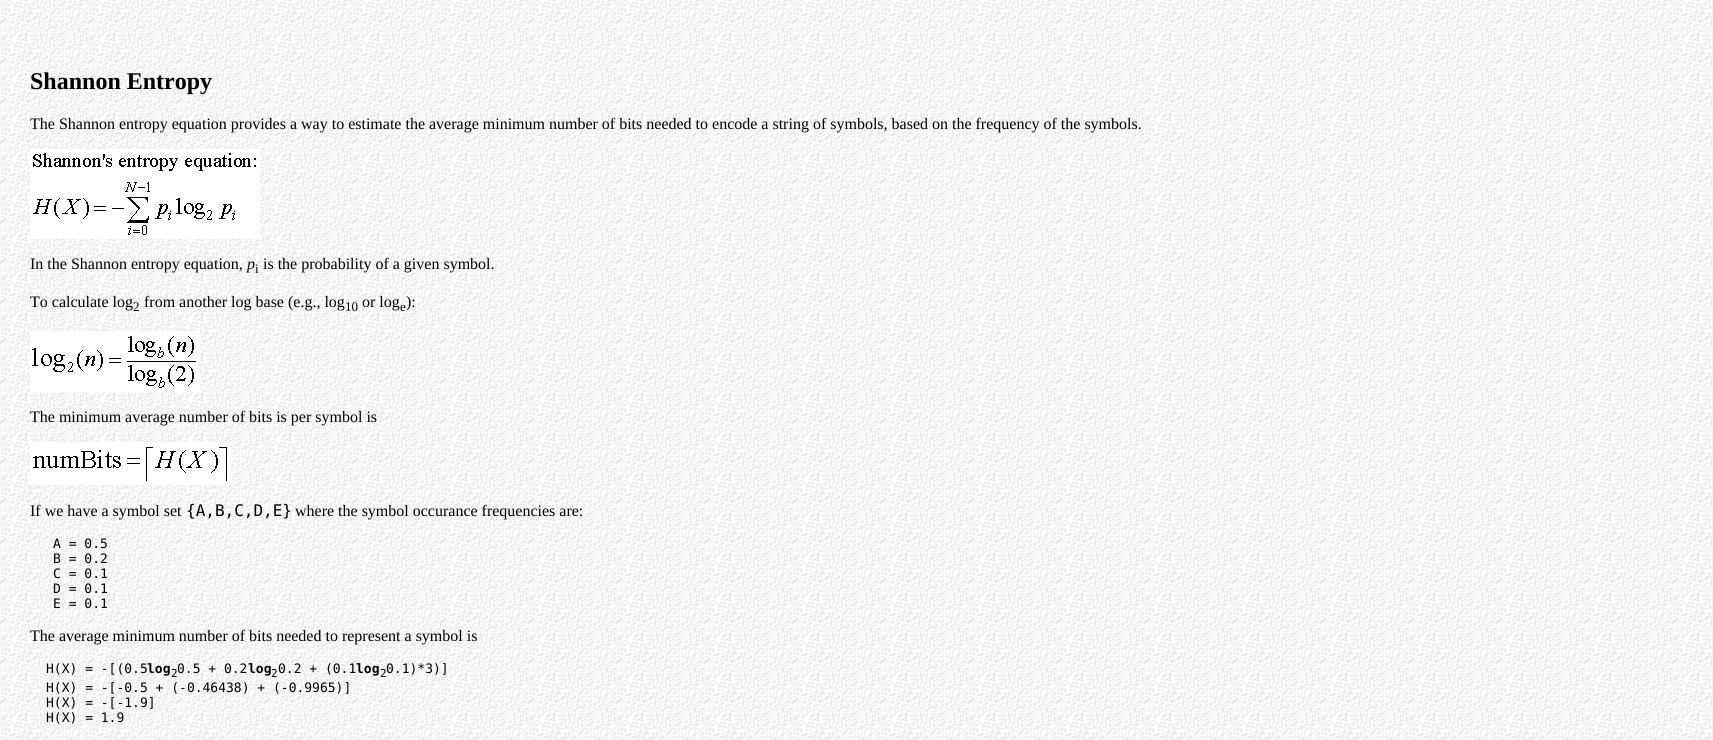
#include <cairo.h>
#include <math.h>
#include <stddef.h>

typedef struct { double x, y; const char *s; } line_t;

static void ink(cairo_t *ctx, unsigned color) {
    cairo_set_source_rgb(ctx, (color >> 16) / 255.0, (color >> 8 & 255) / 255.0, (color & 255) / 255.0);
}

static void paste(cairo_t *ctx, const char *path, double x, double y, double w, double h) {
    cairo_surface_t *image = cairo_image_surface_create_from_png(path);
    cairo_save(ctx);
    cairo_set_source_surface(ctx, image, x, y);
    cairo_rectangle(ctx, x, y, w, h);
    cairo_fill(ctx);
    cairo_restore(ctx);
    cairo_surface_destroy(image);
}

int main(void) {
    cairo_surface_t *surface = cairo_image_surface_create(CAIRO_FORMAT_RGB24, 1713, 740);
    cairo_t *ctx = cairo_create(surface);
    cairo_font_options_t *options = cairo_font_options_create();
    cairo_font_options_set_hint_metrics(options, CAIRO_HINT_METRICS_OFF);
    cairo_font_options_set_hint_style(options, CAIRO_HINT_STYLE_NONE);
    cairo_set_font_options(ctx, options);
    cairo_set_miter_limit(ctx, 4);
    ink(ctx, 0xFFFFFF);
    cairo_paint(ctx);
    paste(ctx, "media/1.png", 0, 0, 1713, 740);
    cairo_select_font_face(ctx, "Liberation Serif", CAIRO_FONT_SLANT_NORMAL, CAIRO_FONT_WEIGHT_BOLD);
    cairo_set_font_size(ctx, 24);
    ink(ctx, 0x000000);
    cairo_move_to(ctx, 30, 89);
    cairo_show_text(ctx, "Shannon Entropy");
    cairo_select_font_face(ctx, "Liberation Serif", CAIRO_FONT_SLANT_NORMAL, CAIRO_FONT_WEIGHT_NORMAL);
    cairo_set_font_size(ctx, 16);
    cairo_move_to(ctx, 30, 129);
    cairo_show_text(ctx, "The Shannon entropy equation provides a way to estimate the average minimum number of bits needed to encode a string of symbols, based on the frequency of the symbols.");
    paste(ctx, "media/2.png", 30, 149, 230, 90);
    cairo_move_to(ctx, 30, 269);
    cairo_show_text(ctx, "In the Shannon entropy equation,");
    cairo_select_font_face(ctx, "Liberation Serif", CAIRO_FONT_SLANT_ITALIC, CAIRO_FONT_WEIGHT_NORMAL);
    cairo_move_to(ctx, 247, 269);
    cairo_show_text(ctx, "p");
    cairo_select_font_face(ctx, "Liberation Serif", CAIRO_FONT_SLANT_NORMAL, CAIRO_FONT_WEIGHT_NORMAL);
    cairo_set_font_size(ctx, 13);
    cairo_move_to(ctx, 255, 273);
    cairo_show_text(ctx, "i");
    cairo_set_font_size(ctx, 16);
    cairo_move_to(ctx, 263, 269);
    cairo_show_text(ctx, "is the probability of a given symbol.");
    cairo_move_to(ctx, 30, 307);
    cairo_show_text(ctx, "To calculate log");
    cairo_set_font_size(ctx, 13);
    cairo_move_to(ctx, 133, 311);
    cairo_show_text(ctx, "2");
    cairo_set_font_size(ctx, 16);
    cairo_move_to(ctx, 144, 307);
    cairo_show_text(ctx, "from another log base (e.g., log");
    cairo_set_font_size(ctx, 13);
    cairo_move_to(ctx, 345, 311);
    cairo_show_text(ctx, "10");
    cairo_set_font_size(ctx, 16);
    cairo_move_to(ctx, 362, 307);
    cairo_show_text(ctx, "or log");
    cairo_set_font_size(ctx, 13);
    cairo_move_to(ctx, 400, 311);
    cairo_show_text(ctx, "e");
    cairo_set_font_size(ctx, 16);
    cairo_move_to(ctx, 406, 307);
    cairo_show_text(ctx, "):");
    paste(ctx, "media/3.png", 30, 331, 170, 61);
    cairo_move_to(ctx, 30, 422);
    cairo_show_text(ctx, "The minimum average number of bits is per symbol is");
    paste(ctx, "media/4.png", 30, 442, 201, 43);
    cairo_move_to(ctx, 30, 516);
    cairo_show_text(ctx, "If we have a symbol set");
    cairo_select_font_face(ctx, "DejaVu Sans Mono", CAIRO_FONT_SLANT_NORMAL, CAIRO_FONT_WEIGHT_NORMAL);
    cairo_move_to(ctx, 186, 516);
    cairo_show_text(ctx, "{A,B,C,D,E}");
    cairo_select_font_face(ctx, "Liberation Serif", CAIRO_FONT_SLANT_NORMAL, CAIRO_FONT_WEIGHT_NORMAL);
    cairo_move_to(ctx, 295, 516);
    cairo_show_text(ctx, "where the symbol occurance frequencies are:");
    cairo_select_font_face(ctx, "DejaVu Sans Mono", CAIRO_FONT_SLANT_NORMAL, CAIRO_FONT_WEIGHT_NORMAL);
    cairo_set_font_size(ctx, 13);
    {
        static const line_t items[] = {
            {53, 548, "A = 0.5"},
            {53, 563, "B = 0.2"},
            {53, 578, "C = 0.1"},
            {53, 593, "D = 0.1"},
            {53, 608, "E = 0.1"},
        };
        for (size_t i = 0; i < sizeof items / sizeof *items; i++) {
            cairo_move_to(ctx, items[i].x, items[i].y);
            cairo_show_text(ctx, items[i].s);
        }
    }
    cairo_select_font_face(ctx, "Liberation Serif", CAIRO_FONT_SLANT_NORMAL, CAIRO_FONT_WEIGHT_NORMAL);
    cairo_set_font_size(ctx, 16);
    cairo_move_to(ctx, 30, 641);
    cairo_show_text(ctx, "The average minimum number of bits needed to represent a symbol is");
    cairo_select_font_face(ctx, "DejaVu Sans Mono", CAIRO_FONT_SLANT_NORMAL, CAIRO_FONT_WEIGHT_NORMAL);
    cairo_set_font_size(ctx, 13);
    cairo_move_to(ctx, 46, 673);
    cairo_show_text(ctx, "H(X) = -[(0.5");
    cairo_select_font_face(ctx, "DejaVu Sans Mono", CAIRO_FONT_SLANT_NORMAL, CAIRO_FONT_WEIGHT_BOLD);
    cairo_move_to(ctx, 147, 673);
    cairo_show_text(ctx, "log");
    cairo_select_font_face(ctx, "DejaVu Sans Mono", CAIRO_FONT_SLANT_NORMAL, CAIRO_FONT_WEIGHT_NORMAL);
    cairo_set_font_size(ctx, 11);
    cairo_move_to(ctx, 171, 677);
    cairo_show_text(ctx, "2");
    cairo_set_font_size(ctx, 13);
    cairo_move_to(ctx, 177, 673);
    cairo_show_text(ctx, "0.5 + 0.2");
    cairo_select_font_face(ctx, "DejaVu Sans Mono", CAIRO_FONT_SLANT_NORMAL, CAIRO_FONT_WEIGHT_BOLD);
    cairo_move_to(ctx, 248, 673);
    cairo_show_text(ctx, "log");
    cairo_select_font_face(ctx, "DejaVu Sans Mono", CAIRO_FONT_SLANT_NORMAL, CAIRO_FONT_WEIGHT_NORMAL);
    cairo_set_font_size(ctx, 11);
    cairo_move_to(ctx, 271, 677);
    cairo_show_text(ctx, "2");
    cairo_set_font_size(ctx, 13);
    cairo_move_to(ctx, 278, 673);
    cairo_show_text(ctx, "0.2 + (0.1");
    cairo_select_font_face(ctx, "DejaVu Sans Mono", CAIRO_FONT_SLANT_NORMAL, CAIRO_FONT_WEIGHT_BOLD);
    cairo_move_to(ctx, 356, 673);
    cairo_show_text(ctx, "log");
    cairo_select_font_face(ctx, "DejaVu Sans Mono", CAIRO_FONT_SLANT_NORMAL, CAIRO_FONT_WEIGHT_NORMAL);
    cairo_set_font_size(ctx, 11);
    cairo_move_to(ctx, 380, 677);
    cairo_show_text(ctx, "2");
    cairo_set_font_size(ctx, 13);
    {
        static const line_t items[] = {
            {386, 673, "0.1)*3)]"},
            {46, 692, "H(X) = -[-0.5 + (-0.46438) + (-0.9965)]"},
            {46, 707, "H(X) = -[-1.9]"},
            {46, 722, "H(X) = 1.9"},
        };
        for (size_t i = 0; i < sizeof items / sizeof *items; i++) {
            cairo_move_to(ctx, items[i].x, items[i].y);
            cairo_show_text(ctx, items[i].s);
        }
    }
    cairo_surface_write_to_png(surface, "image.png");
    cairo_font_options_destroy(options);
    cairo_destroy(ctx);
    cairo_surface_destroy(surface);
    return 0;
}
